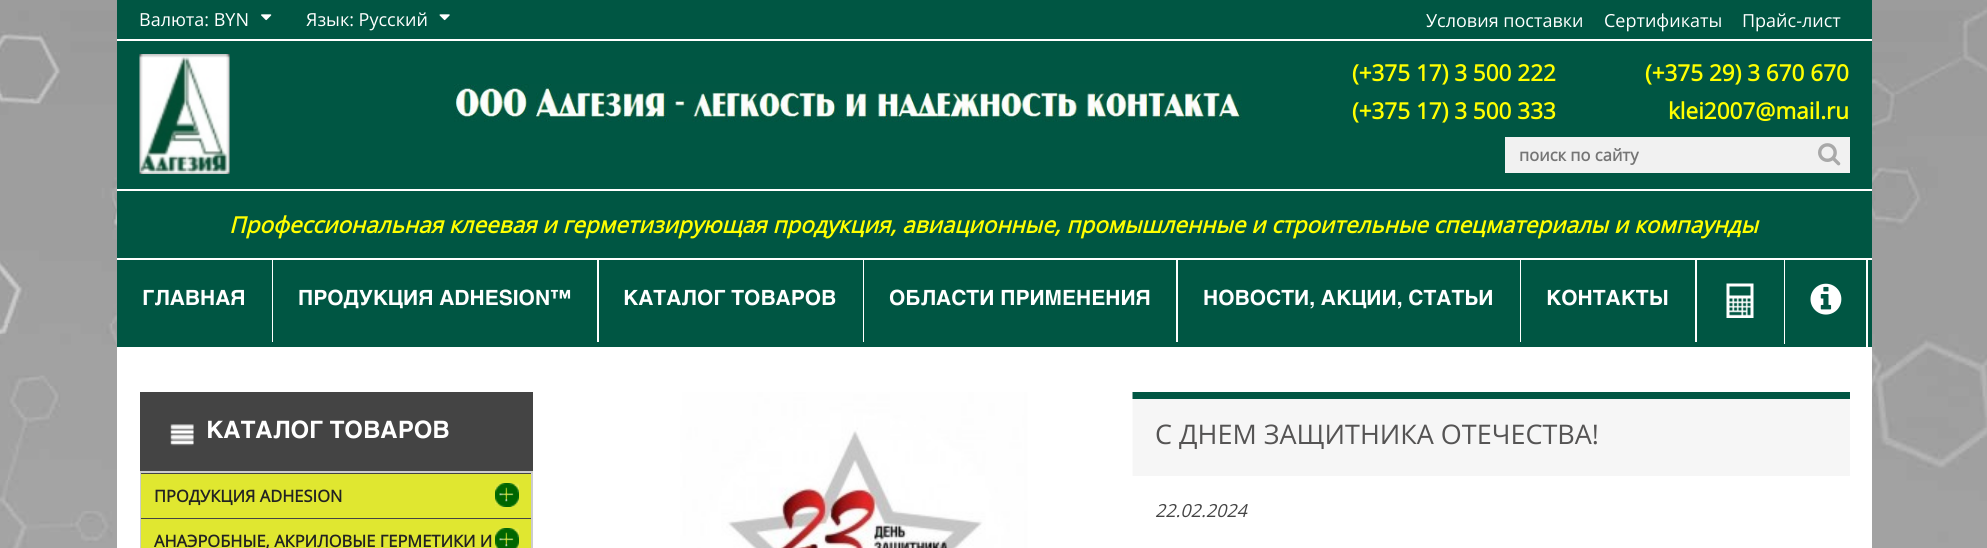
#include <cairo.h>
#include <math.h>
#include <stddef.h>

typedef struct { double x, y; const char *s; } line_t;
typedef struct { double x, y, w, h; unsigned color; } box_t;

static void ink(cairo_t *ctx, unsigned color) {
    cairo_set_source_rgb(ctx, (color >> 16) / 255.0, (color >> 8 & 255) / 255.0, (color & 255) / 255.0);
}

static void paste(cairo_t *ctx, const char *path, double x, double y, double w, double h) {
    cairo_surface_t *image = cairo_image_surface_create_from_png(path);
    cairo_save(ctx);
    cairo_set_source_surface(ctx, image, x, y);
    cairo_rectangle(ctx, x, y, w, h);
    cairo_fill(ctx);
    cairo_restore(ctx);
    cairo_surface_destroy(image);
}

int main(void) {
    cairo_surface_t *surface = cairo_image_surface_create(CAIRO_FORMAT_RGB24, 1987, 548);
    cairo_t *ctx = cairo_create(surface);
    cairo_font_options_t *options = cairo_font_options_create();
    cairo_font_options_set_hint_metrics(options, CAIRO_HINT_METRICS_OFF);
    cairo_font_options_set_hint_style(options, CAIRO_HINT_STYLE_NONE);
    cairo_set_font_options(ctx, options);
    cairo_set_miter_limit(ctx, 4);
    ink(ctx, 0xFFFFFF);
    cairo_paint(ctx);
    paste(ctx, "media/1.png", 0, 0, 1987, 548);
    {
        static const box_t items[] = {
            {117, 347, 1755, 201, 0xFFFFFF},
            {117, 0, 1755, 39, 0x005643},
            {117, 39, 1755, 2, 0xFFFFFF},
        };
        for (size_t i = 0; i < sizeof items / sizeof *items; i++) {
            ink(ctx, items[i].color);
            cairo_rectangle(ctx, items[i].x, items[i].y, items[i].w, items[i].h);
            cairo_fill(ctx);
        }
    }
    cairo_select_font_face(ctx, "Open Sans", CAIRO_FONT_SLANT_NORMAL, CAIRO_FONT_WEIGHT_NORMAL);
    cairo_set_font_size(ctx, 18);
    cairo_move_to(ctx, 139, 26);
    cairo_show_text(ctx, "Валюта: BYN");
    paste(ctx, "media/2.png", 261, 14, 11, 7);
    cairo_move_to(ctx, 306, 26);
    cairo_show_text(ctx, "Язык: Русский");
    paste(ctx, "media/3.png", 439, 14, 11, 7);
    {
        static const line_t items[] = {
            {1426, 27, "Условия поставки"},
            {1604, 27, "Сертификаты"},
            {1742, 27, "Прайс-лист"},
        };
        for (size_t i = 0; i < sizeof items / sizeof *items; i++) {
            cairo_move_to(ctx, items[i].x, items[i].y);
            cairo_show_text(ctx, items[i].s);
        }
    }
    ink(ctx, 0x005643);
    cairo_rectangle(ctx, 117, 41, 1755, 217);
    cairo_fill(ctx);
    paste(ctx, "media/4.png", 139, 54, 91, 120);
    paste(ctx, "media/5.png", 454, 84, 788, 38);
    cairo_select_font_face(ctx, "Open Sans", CAIRO_FONT_SLANT_NORMAL, CAIRO_FONT_WEIGHT_BOLD);
    cairo_set_font_size(ctx, 22.5);
    ink(ctx, 0xFFFF00);
    {
        static const line_t items[] = {
            {1352, 81, "(+375 17) 3 500 222"},
            {1645, 81, "(+375 29) 3 670 670"},
            {1352, 119, "(+375 17) 3 500 333"},
            {1668, 119, "klei2007@mail.ru"},
        };
        for (size_t i = 0; i < sizeof items / sizeof *items; i++) {
            cairo_move_to(ctx, items[i].x, items[i].y);
            cairo_show_text(ctx, items[i].s);
        }
    }
    ink(ctx, 0xF1F1F1);
    cairo_rectangle(ctx, 1505, 137, 345, 36);
    cairo_fill(ctx);
    cairo_set_font_size(ctx, 16.5);
    ink(ctx, 0x757575);
    cairo_move_to(ctx, 1519, 161);
    cairo_show_text(ctx, "поиск по сайту");
    paste(ctx, "media/6.png", 1818, 143, 23, 23);
    ink(ctx, 0xFFFFFF);
    cairo_rectangle(ctx, 117, 189, 1755, 2);
    cairo_fill(ctx);
    cairo_select_font_face(ctx, "Open Sans", CAIRO_FONT_SLANT_ITALIC, CAIRO_FONT_WEIGHT_BOLD);
    cairo_set_font_size(ctx, 22.5);
    ink(ctx, 0xFFFF00);
    cairo_move_to(ctx, 229, 233);
    cairo_show_text(ctx, "Профессиональная клеевая и герметизирующая продукция, авиационные, промышленные и строительные спецматериалы и компаунды");
    {
        static const box_t items[] = {
            {117, 260, 1755, 87, 0x005643},
            {117, 258, 1755, 2, 0xFFFFFF},
            {272, 260, 1, 82, 0xFFFFFF},
        };
        for (size_t i = 0; i < sizeof items / sizeof *items; i++) {
            ink(ctx, items[i].color);
            cairo_rectangle(ctx, items[i].x, items[i].y, items[i].w, items[i].h);
            cairo_fill(ctx);
        }
    }
    cairo_select_font_face(ctx, "Helvetica", CAIRO_FONT_SLANT_NORMAL, CAIRO_FONT_WEIGHT_BOLD);
    cairo_set_font_size(ctx, 21);
    cairo_move_to(ctx, 142, 305);
    cairo_show_text(ctx, "ГЛАВНАЯ");
    cairo_rectangle(ctx, 597, 260, 2, 82);
    cairo_fill(ctx);
    cairo_move_to(ctx, 298, 305);
    cairo_show_text(ctx, "ПРОДУКЦИЯ ADHESION™");
    cairo_rectangle(ctx, 863, 260, 1, 82);
    cairo_fill(ctx);
    cairo_move_to(ctx, 623, 305);
    cairo_show_text(ctx, "КАТАЛОГ ТОВАРОВ");
    cairo_rectangle(ctx, 1176, 260, 2, 82);
    cairo_fill(ctx);
    cairo_move_to(ctx, 889, 305);
    cairo_show_text(ctx, "ОБЛАСТИ ПРИМЕНЕНИЯ");
    cairo_rectangle(ctx, 1520, 260, 1, 82);
    cairo_fill(ctx);
    cairo_move_to(ctx, 1203, 305);
    cairo_show_text(ctx, "НОВОСТИ, АКЦИИ, СТАТЬИ");
    cairo_rectangle(ctx, 1695, 260, 2, 82);
    cairo_fill(ctx);
    cairo_move_to(ctx, 1546, 305);
    cairo_show_text(ctx, "КОНТАКТЫ");
    cairo_rectangle(ctx, 1784, 260, 1, 84);
    cairo_fill(ctx);
    paste(ctx, "media/7.png", 1726, 283, 28, 35);
    cairo_rectangle(ctx, 1866, 260, 2, 87);
    cairo_fill(ctx);
    paste(ctx, "media/8.png", 1810, 283, 32, 32);
    ink(ctx, 0x444444);
    cairo_rectangle(ctx, 140, 392, 393, 79);
    cairo_fill(ctx);
    paste(ctx, "media/9.png", 170, 424, 24, 22);
    cairo_set_font_size(ctx, 24);
    ink(ctx, 0xFFFFFF);
    cairo_move_to(ctx, 206, 438);
    cairo_show_text(ctx, "КАТАЛОГ ТОВАРОВ");
    cairo_rectangle(ctx, 141, 472, 391, 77);
    ink(ctx, 0xCCCCCC);
    cairo_stroke(ctx);
    ink(ctx, 0x444444);
    cairo_rectangle(ctx, 141, 473, 390, 1);
    cairo_fill(ctx);
    ink(ctx, 0xE0E730);
    cairo_rectangle(ctx, 141, 474, 390, 44);
    cairo_fill(ctx);
    paste(ctx, "media/10.png", 495, 483, 24, 24);
    cairo_select_font_face(ctx, "Open Sans", CAIRO_FONT_SLANT_NORMAL, CAIRO_FONT_WEIGHT_BOLD);
    cairo_set_font_size(ctx, 16.5);
    ink(ctx, 0x222222);
    cairo_move_to(ctx, 154, 502);
    cairo_show_text(ctx, "ПРОДУКЦИЯ ADHESION");
    paste(ctx, "media/11.png", 495, 483, 24, 24);
    ink(ctx, 0x444444);
    cairo_rectangle(ctx, 141, 518, 390, 1);
    cairo_fill(ctx);
    ink(ctx, 0xE0E730);
    cairo_rectangle(ctx, 141, 519, 390, 29);
    cairo_fill(ctx);
    paste(ctx, "media/12.png", 495, 528, 24, 20);
    ink(ctx, 0x222222);
    cairo_move_to(ctx, 154, 547);
    cairo_show_text(ctx, "АНАЭРОБНЫЕ, АКРИЛОВЫЕ ГЕРМЕТИКИ И");
    paste(ctx, "media/13.png", 495, 528, 24, 20);
    ink(ctx, 0xF6F6F6);
    cairo_rectangle(ctx, 1132, 399, 718, 77);
    cairo_fill(ctx);
    ink(ctx, 0x005643);
    cairo_rectangle(ctx, 1132, 392, 718, 7);
    cairo_fill(ctx);
    paste(ctx, "media/14.png", 578, 392, 555, 156);
    cairo_select_font_face(ctx, "Open Sans", CAIRO_FONT_SLANT_NORMAL, CAIRO_FONT_WEIGHT_NORMAL);
    cairo_set_font_size(ctx, 27);
    ink(ctx, 0x555454);
    cairo_move_to(ctx, 1155, 444);
    cairo_show_text(ctx, "С ДНЕМ ЗАЩИТНИКА ОТЕЧЕСТВА!");
    cairo_select_font_face(ctx, "Open Sans", CAIRO_FONT_SLANT_ITALIC, CAIRO_FONT_WEIGHT_NORMAL);
    cairo_set_font_size(ctx, 18);
    ink(ctx, 0x444444);
    cairo_move_to(ctx, 1155, 517);
    cairo_show_text(ctx, "22.02.2024");
    cairo_surface_write_to_png(surface, "image.png");
    cairo_font_options_destroy(options);
    cairo_destroy(ctx);
    cairo_surface_destroy(surface);
    return 0;
}
